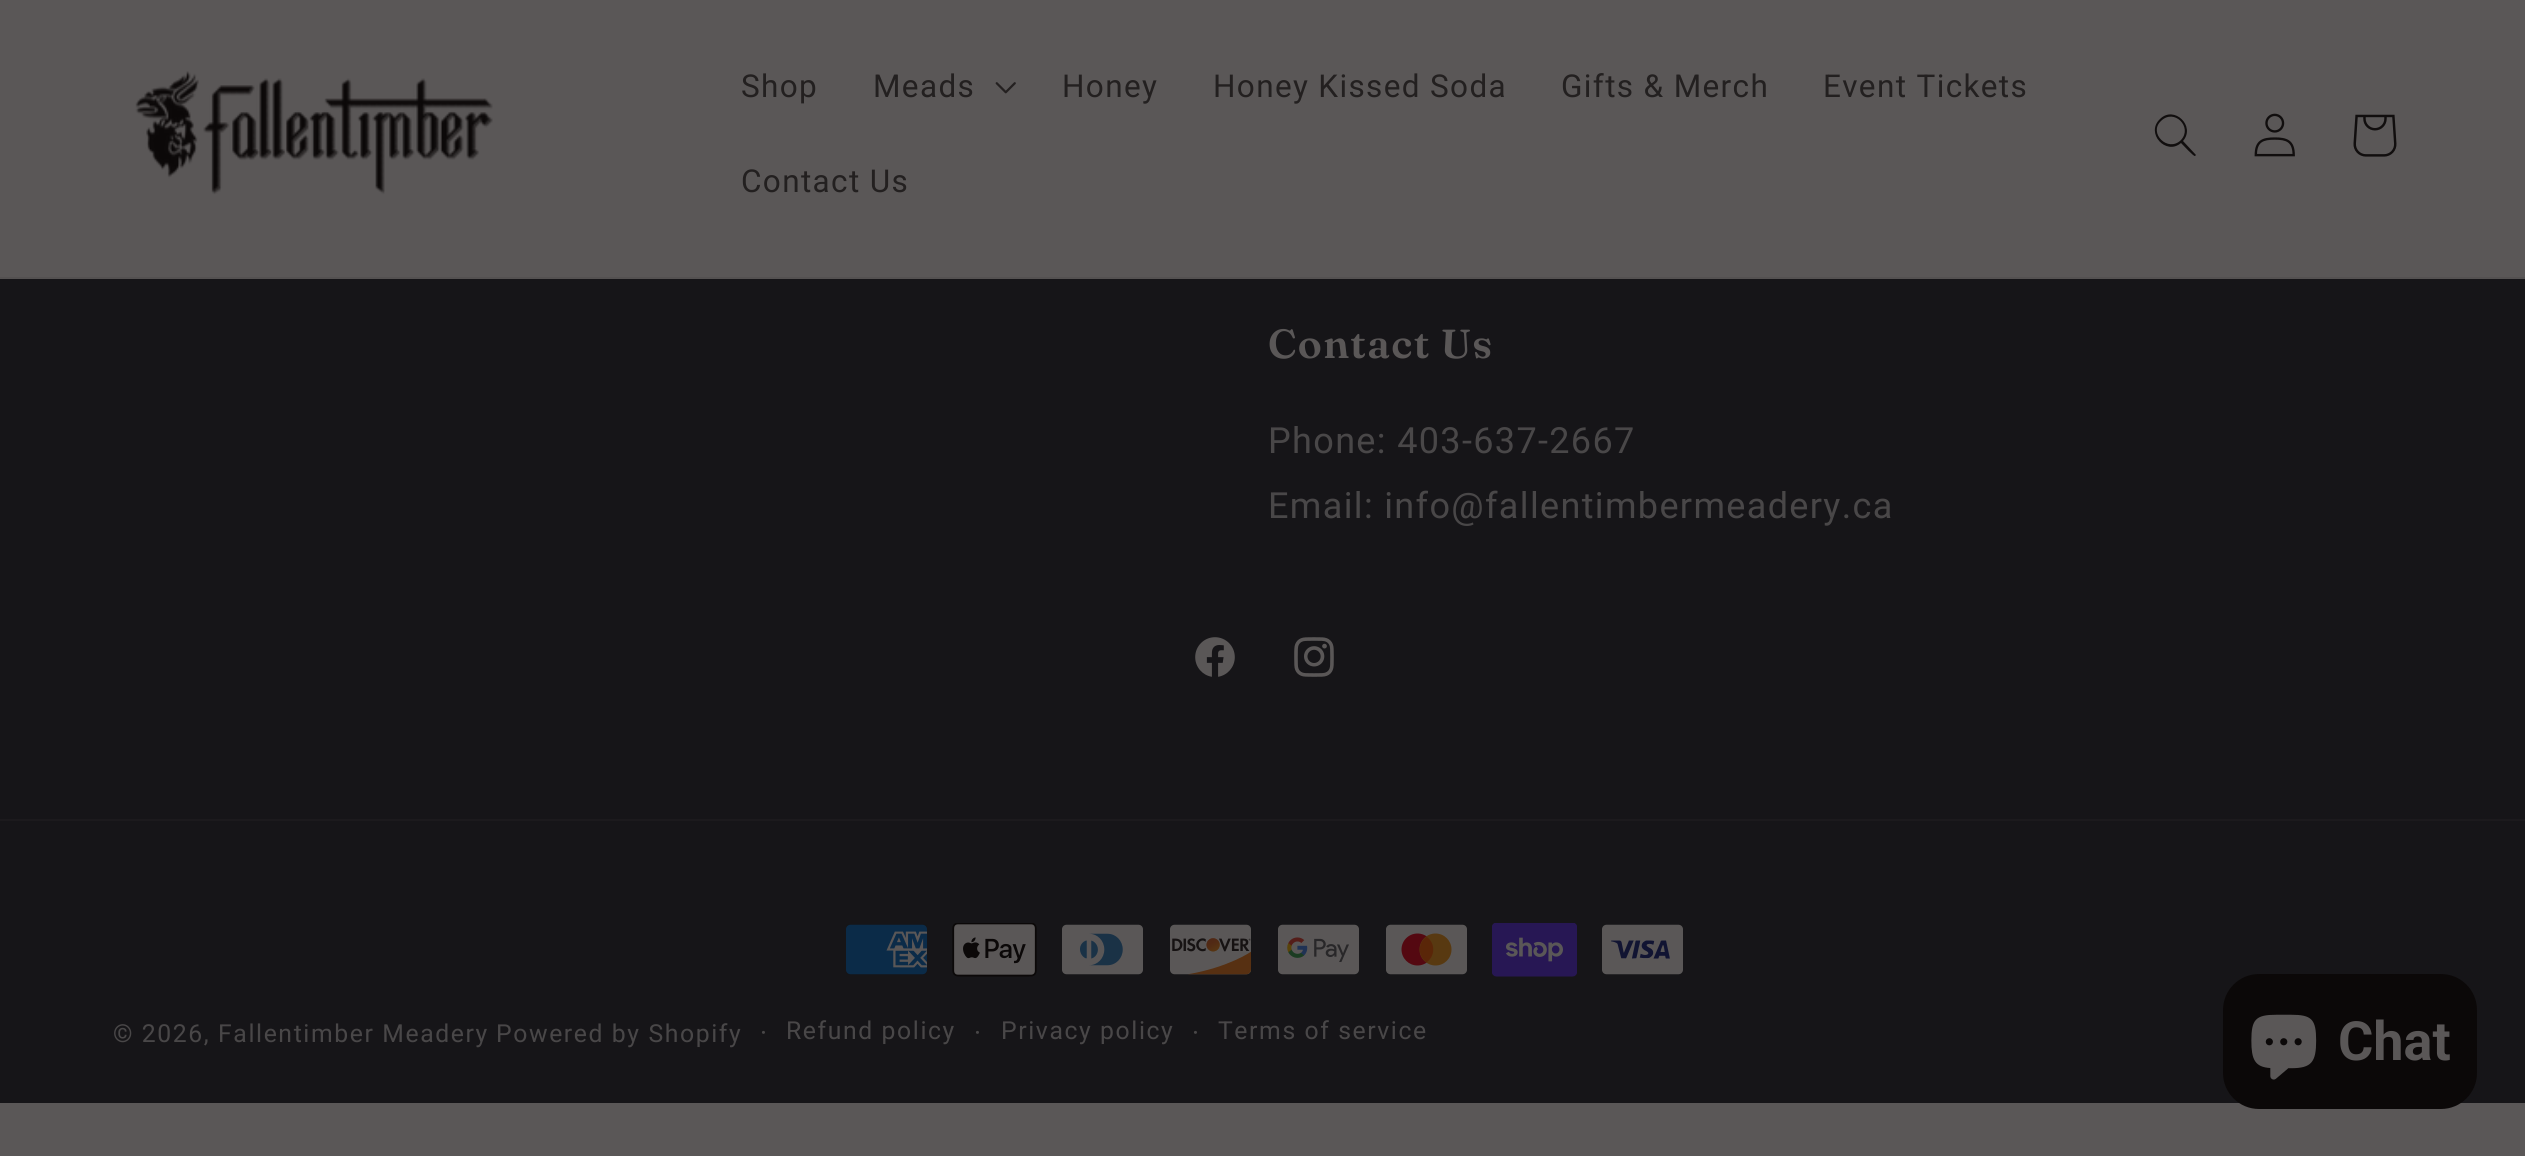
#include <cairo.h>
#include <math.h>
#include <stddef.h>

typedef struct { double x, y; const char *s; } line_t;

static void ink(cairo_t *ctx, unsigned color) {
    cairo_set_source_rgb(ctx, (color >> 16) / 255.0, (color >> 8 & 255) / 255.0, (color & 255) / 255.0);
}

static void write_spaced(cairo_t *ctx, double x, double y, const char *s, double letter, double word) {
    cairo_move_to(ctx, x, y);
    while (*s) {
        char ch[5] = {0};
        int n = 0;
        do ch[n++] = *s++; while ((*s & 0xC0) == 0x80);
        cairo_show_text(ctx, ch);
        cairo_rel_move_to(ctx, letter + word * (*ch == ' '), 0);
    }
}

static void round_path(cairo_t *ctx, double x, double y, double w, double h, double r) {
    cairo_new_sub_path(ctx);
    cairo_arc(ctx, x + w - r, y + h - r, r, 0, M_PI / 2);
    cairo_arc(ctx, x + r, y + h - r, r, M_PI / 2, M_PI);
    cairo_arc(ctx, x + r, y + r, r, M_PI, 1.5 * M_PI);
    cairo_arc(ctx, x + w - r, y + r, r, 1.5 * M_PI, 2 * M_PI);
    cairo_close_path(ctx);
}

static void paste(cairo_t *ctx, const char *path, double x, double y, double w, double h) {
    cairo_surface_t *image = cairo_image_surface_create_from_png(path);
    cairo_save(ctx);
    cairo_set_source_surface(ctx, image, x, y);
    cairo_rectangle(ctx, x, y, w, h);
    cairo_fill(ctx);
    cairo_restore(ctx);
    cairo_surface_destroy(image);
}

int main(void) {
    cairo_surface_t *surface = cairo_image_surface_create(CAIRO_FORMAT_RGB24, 2525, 1156);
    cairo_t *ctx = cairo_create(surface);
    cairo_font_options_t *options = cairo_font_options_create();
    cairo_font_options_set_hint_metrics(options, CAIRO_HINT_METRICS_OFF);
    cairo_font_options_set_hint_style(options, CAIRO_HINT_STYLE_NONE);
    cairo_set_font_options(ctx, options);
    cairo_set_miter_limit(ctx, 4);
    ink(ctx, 0x5A5757);
    cairo_paint(ctx);
    ink(ctx, 0x545151);
    cairo_rectangle(ctx, 0, 277, 2525, 2);
    cairo_fill(ctx);
    paste(ctx, "media/1.png", 135, 71, 358, 124);
    cairo_select_font_face(ctx, "Roboto", CAIRO_FONT_SLANT_NORMAL, CAIRO_FONT_WEIGHT_NORMAL);
    cairo_set_font_size(ctx, 31.5);
    ink(ctx, 0x232020);
    write_spaced(ctx, 741, 97, "Shop", 1.35, 0);
    write_spaced(ctx, 873, 97, "Meads", 1.35, 0);
    paste(ctx, "media/2.png", 995, 82, 21, 12);
    {
        static const line_t items[] = {
            {1062, 97, "Honey"},
            {1213, 97, "Honey Kissed Soda"},
            {1561, 97, "Gifts & Merch"},
            {1823, 97, "Event Tickets"},
            {741, 192, "Contact Us"},
        };
        for (size_t i = 0; i < sizeof items / sizeof *items; i++) {
            write_spaced(ctx, items[i].x, items[i].y, items[i].s, 1.35, 0);
        }
    }
    ink(ctx, 0x110E0E);
    cairo_set_fill_rule(ctx, CAIRO_FILL_RULE_EVEN_ODD);
    cairo_new_path(ctx);
    cairo_move_to(ctx, 2181, 140);
    cairo_curve_to(ctx, 2168, 153, 2148, 133, 2161, 121);
    cairo_curve_to(ctx, 2174, 108, 2193, 127, 2181, 140);
    cairo_close_path(ctx);
    cairo_move_to(ctx, 2181, 143);
    cairo_curve_to(ctx, 2166, 156, 2145, 133, 2160, 119);
    cairo_curve_to(ctx, 2174, 105, 2196, 126, 2183, 141);
    cairo_line_to(ctx, 2196, 155);
    cairo_line_to(ctx, 2195, 156);
    cairo_curve_to(ctx, 2194, 157, 2183, 145, 2181, 143);
    cairo_close_path(ctx);
    cairo_fill(ctx);
    paste(ctx, "media/3.png", 2254, 113, 41, 44);
    paste(ctx, "media/4.png", 2353, 114, 44, 43);
    ink(ctx, 0x161518);
    cairo_rectangle(ctx, 0, 279, 2525, 824);
    cairo_fill(ctx);
    cairo_select_font_face(ctx, "Fraunces SemiBold", CAIRO_FONT_SLANT_NORMAL, CAIRO_FONT_WEIGHT_NORMAL);
    cairo_set_font_size(ctx, 40.5);
    ink(ctx, 0x5A5757);
    write_spaced(ctx, 1268, 358, "Contact Us", 1.35, 0);
    cairo_select_font_face(ctx, "Roboto", CAIRO_FONT_SLANT_NORMAL, CAIRO_FONT_WEIGHT_NORMAL);
    cairo_set_font_size(ctx, 36);
    ink(ctx, 0x494748);
    write_spaced(ctx, 1268, 453, "Phone: 403-637-2667", 1.35, 0);
    write_spaced(ctx, 1268, 518, "Email: info@fallentimbermeadery.ca", 1.35, 0);
    paste(ctx, "media/5.png", 1195, 637, 40, 40);
    paste(ctx, "media/6.png", 1294, 637, 40, 40);
    ink(ctx, 0x1C1A1D);
    cairo_rectangle(ctx, 0, 819, 2525, 2);
    cairo_fill(ctx);
    paste(ctx, "media/7.png", 846, 924, 81, 51);
    paste(ctx, "media/8.png", 952, 923, 85, 54);
    paste(ctx, "media/9.png", 1062, 924, 81, 51);
    paste(ctx, "media/10.png", 1170, 924, 82, 51);
    paste(ctx, "media/11.png", 1278, 924, 81, 51);
    paste(ctx, "media/12.png", 1386, 924, 81, 51);
    paste(ctx, "media/13.png", 1492, 923, 85, 54);
    paste(ctx, "media/14.png", 1602, 924, 81, 51);
    cairo_set_font_size(ctx, 24.75);
    ink(ctx, 0x494748);
    write_spaced(ctx, 113, 1042, "© 2026, Fallentimber Meadery", 1.6, 0);
    write_spaced(ctx, 496, 1042, "Powered by Shopify", 1.6, 0);
    cairo_set_font_size(ctx, 27);
    write_spaced(ctx, 760, 1042, "·", 1.6, 0);
    cairo_set_font_size(ctx, 24.75);
    write_spaced(ctx, 786, 1039, "Refund policy", 1.6, 0);
    cairo_set_font_size(ctx, 27);
    write_spaced(ctx, 974, 1042, "·", 1.6, 0);
    cairo_set_font_size(ctx, 24.75);
    write_spaced(ctx, 1001, 1039, "Privacy policy", 1.6, 0);
    cairo_set_font_size(ctx, 27);
    write_spaced(ctx, 1192, 1042, "·", 1.6, 0);
    cairo_set_font_size(ctx, 24.75);
    write_spaced(ctx, 1218, 1039, "Terms of service", 1.6, 0);
    ink(ctx, 0x0B0808);
    round_path(ctx, 2223, 974, 254, 135, 36);
    cairo_fill(ctx);
    paste(ctx, "media/15.png", 2251, 1014, 66, 66);
    cairo_select_font_face(ctx, "Roboto", CAIRO_FONT_SLANT_NORMAL, CAIRO_FONT_WEIGHT_BOLD);
    cairo_set_font_size(ctx, 54);
    ink(ctx, 0x5A5757);
    cairo_move_to(ctx, 2338, 1060);
    cairo_show_text(ctx, "Chat");
    cairo_surface_write_to_png(surface, "image.png");
    cairo_font_options_destroy(options);
    cairo_destroy(ctx);
    cairo_surface_destroy(surface);
    return 0;
}
